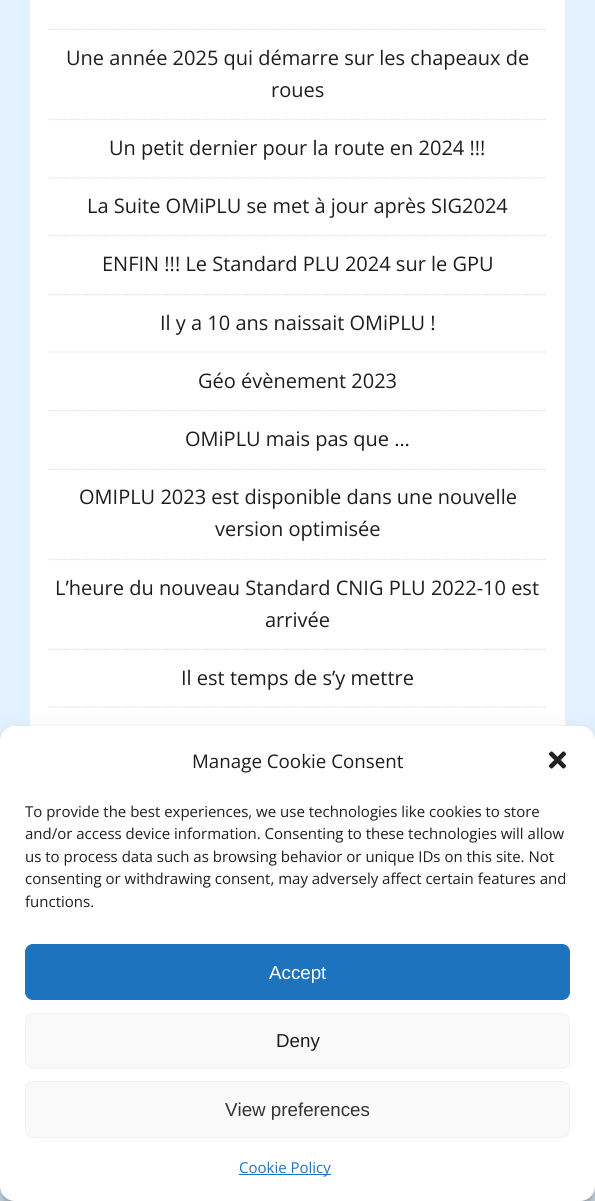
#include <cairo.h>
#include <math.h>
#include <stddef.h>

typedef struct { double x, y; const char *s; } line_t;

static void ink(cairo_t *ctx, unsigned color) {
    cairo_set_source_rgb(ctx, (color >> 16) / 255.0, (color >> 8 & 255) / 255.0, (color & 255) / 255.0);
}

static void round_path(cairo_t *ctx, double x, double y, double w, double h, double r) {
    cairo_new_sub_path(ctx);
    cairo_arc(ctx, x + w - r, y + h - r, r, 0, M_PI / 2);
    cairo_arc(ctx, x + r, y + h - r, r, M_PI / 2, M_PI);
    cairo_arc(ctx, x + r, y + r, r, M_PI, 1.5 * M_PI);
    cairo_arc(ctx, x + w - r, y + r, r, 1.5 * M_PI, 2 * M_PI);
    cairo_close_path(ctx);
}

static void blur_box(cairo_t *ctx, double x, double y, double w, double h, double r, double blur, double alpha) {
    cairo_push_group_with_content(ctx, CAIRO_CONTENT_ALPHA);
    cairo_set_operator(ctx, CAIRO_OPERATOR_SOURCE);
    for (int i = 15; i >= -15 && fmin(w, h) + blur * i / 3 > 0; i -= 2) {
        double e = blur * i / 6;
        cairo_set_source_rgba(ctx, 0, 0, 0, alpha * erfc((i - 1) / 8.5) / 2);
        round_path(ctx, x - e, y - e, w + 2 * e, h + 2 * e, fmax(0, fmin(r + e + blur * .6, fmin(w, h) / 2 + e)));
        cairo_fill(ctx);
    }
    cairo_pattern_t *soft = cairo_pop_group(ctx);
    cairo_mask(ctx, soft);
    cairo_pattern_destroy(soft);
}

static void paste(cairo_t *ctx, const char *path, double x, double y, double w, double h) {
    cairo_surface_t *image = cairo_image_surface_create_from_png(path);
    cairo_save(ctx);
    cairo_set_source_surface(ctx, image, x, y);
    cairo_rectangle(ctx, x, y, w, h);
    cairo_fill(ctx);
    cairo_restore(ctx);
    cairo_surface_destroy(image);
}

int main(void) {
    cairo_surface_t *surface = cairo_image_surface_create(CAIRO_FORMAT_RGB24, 595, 1201);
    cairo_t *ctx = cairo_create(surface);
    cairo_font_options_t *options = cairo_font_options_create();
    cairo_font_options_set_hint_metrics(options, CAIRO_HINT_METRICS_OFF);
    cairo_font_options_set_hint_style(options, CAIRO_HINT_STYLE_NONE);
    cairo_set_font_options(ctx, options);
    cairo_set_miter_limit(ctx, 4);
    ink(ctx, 0xE4F1FE);
    cairo_paint(ctx);
    ink(ctx, 0xFFFFFF);
    cairo_rectangle(ctx, 30, 0, 535, 726);
    cairo_fill(ctx);
    cairo_new_path(ctx);
    cairo_move_to(ctx, 49, 29.5);
    cairo_line_to(ctx, 546, 29.5);
    ink(ctx, 0xDCDCDC);
    cairo_set_line_width(ctx, 1.2);
    cairo_set_dash(ctx, (double[]){1.25, 1.25}, 2, 0);
    cairo_stroke(ctx);
    cairo_new_path(ctx);
    cairo_move_to(ctx, 49, 119.5);
    cairo_line_to(ctx, 546, 119.5);
    cairo_stroke(ctx);
    cairo_select_font_face(ctx, "Open Sans", CAIRO_FONT_SLANT_NORMAL, CAIRO_FONT_WEIGHT_NORMAL);
    cairo_set_font_size(ctx, 20);
    ink(ctx, 0x1F1E1E);
    cairo_move_to(ctx, 66, 65);
    cairo_show_text(ctx, "Une année 2025 qui démarre sur les chapeaux de");
    cairo_move_to(ctx, 271, 97);
    cairo_show_text(ctx, "roues");
    cairo_new_path(ctx);
    cairo_move_to(ctx, 49, 178);
    cairo_line_to(ctx, 546, 178);
    ink(ctx, 0xDCDCDC);
    cairo_stroke(ctx);
    ink(ctx, 0x1F1E1E);
    cairo_move_to(ctx, 109, 155);
    cairo_show_text(ctx, "Un petit dernier pour la route en 2024 !!!");
    cairo_new_path(ctx);
    cairo_move_to(ctx, 49, 235.5);
    cairo_line_to(ctx, 546, 235.5);
    ink(ctx, 0xDCDCDC);
    cairo_stroke(ctx);
    ink(ctx, 0x1F1E1E);
    cairo_move_to(ctx, 87, 213);
    cairo_show_text(ctx, "La Suite OMiPLU se met à jour après SIG2024");
    cairo_new_path(ctx);
    cairo_move_to(ctx, 49, 294.5);
    cairo_line_to(ctx, 546, 294.5);
    ink(ctx, 0xDCDCDC);
    cairo_stroke(ctx);
    ink(ctx, 0x1F1E1E);
    cairo_move_to(ctx, 102, 271);
    cairo_show_text(ctx, "ENFIN !!! Le Standard PLU 2024 sur le GPU");
    cairo_new_path(ctx);
    cairo_move_to(ctx, 49, 352);
    cairo_line_to(ctx, 546, 352);
    ink(ctx, 0xDCDCDC);
    cairo_stroke(ctx);
    ink(ctx, 0x1F1E1E);
    cairo_move_to(ctx, 160, 330);
    cairo_show_text(ctx, "Il y a 10 ans naissait OMiPLU !");
    cairo_new_path(ctx);
    cairo_move_to(ctx, 49, 410.5);
    cairo_line_to(ctx, 546, 410.5);
    ink(ctx, 0xDCDCDC);
    cairo_stroke(ctx);
    ink(ctx, 0x1F1E1E);
    cairo_move_to(ctx, 198, 388);
    cairo_show_text(ctx, "Géo évènement 2023");
    cairo_new_path(ctx);
    cairo_move_to(ctx, 49, 469.5);
    cairo_line_to(ctx, 546, 469.5);
    ink(ctx, 0xDCDCDC);
    cairo_stroke(ctx);
    ink(ctx, 0x1F1E1E);
    cairo_move_to(ctx, 185, 446);
    cairo_show_text(ctx, "OMiPLU mais pas que …");
    cairo_new_path(ctx);
    cairo_move_to(ctx, 49, 559.5);
    cairo_line_to(ctx, 546, 559.5);
    ink(ctx, 0xDCDCDC);
    cairo_stroke(ctx);
    ink(ctx, 0x1F1E1E);
    cairo_move_to(ctx, 79, 504);
    cairo_show_text(ctx, "OMIPLU 2023 est disponible dans une nouvelle");
    cairo_move_to(ctx, 215, 536);
    cairo_show_text(ctx, "version optimisée");
    cairo_new_path(ctx);
    cairo_move_to(ctx, 49, 649.5);
    cairo_line_to(ctx, 546, 649.5);
    ink(ctx, 0xDCDCDC);
    cairo_stroke(ctx);
    ink(ctx, 0x1F1E1E);
    cairo_move_to(ctx, 55, 595);
    cairo_show_text(ctx, "L’heure du nouveau Standard CNIG PLU 2022-10 est");
    cairo_move_to(ctx, 265, 627);
    cairo_show_text(ctx, "arrivée");
    cairo_new_path(ctx);
    cairo_move_to(ctx, 49, 707);
    cairo_line_to(ctx, 546, 707);
    ink(ctx, 0xDCDCDC);
    cairo_stroke(ctx);
    ink(ctx, 0x1F1E1E);
    cairo_move_to(ctx, 181, 685);
    cairo_show_text(ctx, "Il est temps de s’y mettre");
    ink(ctx, 0x000000);
    blur_box(ctx, 0, 734, 595, 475, 15, 4, 0.23);
    blur_box(ctx, 0, 739, 595, 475, 15, 12.5, 0.19);
    ink(ctx, 0xFFFFFF);
    round_path(ctx, 0, 726, 595, 475, 15);
    cairo_fill(ctx);
    cairo_set_font_size(ctx, 18.75);
    ink(ctx, 0x1F1E1E);
    cairo_move_to(ctx, 192, 768);
    cairo_show_text(ctx, "Manage Cookie Consent");
    paste(ctx, "media/1.png", 548, 751, 19, 18);
    cairo_set_font_size(ctx, 15);
    {
        static const line_t items[] = {
            {25, 817, "To provide the best experiences, we use technologies like cookies to store"},
            {25, 839, "and/or access device information. Consenting to these technologies will allow"},
            {25, 862, "us to process data such as browsing behavior or unique IDs on this site. Not"},
            {25, 884, "consenting or withdrawing consent, may adversely affect certain features and"},
            {25, 907, "functions."},
        };
        for (size_t i = 0; i < sizeof items / sizeof *items; i++) {
            cairo_move_to(ctx, items[i].x, items[i].y);
            cairo_show_text(ctx, items[i].s);
        }
    }
    ink(ctx, 0x1E73BE);
    round_path(ctx, 25.5, 944.5, 544, 55, 7.5);
    cairo_fill_preserve(ctx);
    cairo_set_line_width(ctx, 1);
    cairo_set_dash(ctx, NULL, 0, 0);
    cairo_stroke(ctx);
    cairo_select_font_face(ctx, "Liberation Sans", CAIRO_FONT_SLANT_NORMAL, CAIRO_FONT_WEIGHT_NORMAL);
    cairo_set_font_size(ctx, 18.75);
    ink(ctx, 0xFFFFFF);
    cairo_move_to(ctx, 269, 979);
    cairo_show_text(ctx, "Accept");
    ink(ctx, 0xF9F9F9);
    round_path(ctx, 25.5, 1013.5, 544, 55, 7.5);
    cairo_fill_preserve(ctx);
    ink(ctx, 0xF2F2F2);
    cairo_stroke(ctx);
    ink(ctx, 0x1F1E1E);
    cairo_move_to(ctx, 276, 1047);
    cairo_show_text(ctx, "Deny");
    ink(ctx, 0xF9F9F9);
    round_path(ctx, 25.5, 1081.5, 544, 56, 7.5);
    cairo_fill_preserve(ctx);
    ink(ctx, 0xF2F2F2);
    cairo_stroke(ctx);
    ink(ctx, 0x333333);
    cairo_move_to(ctx, 225, 1116);
    cairo_show_text(ctx, "View preferences");
    ink(ctx, 0x1E73BE);
    cairo_rectangle(ctx, 239, 1174, 92, 1);
    cairo_fill(ctx);
    cairo_select_font_face(ctx, "Open Sans", CAIRO_FONT_SLANT_NORMAL, CAIRO_FONT_WEIGHT_NORMAL);
    cairo_set_font_size(ctx, 15);
    cairo_move_to(ctx, 239, 1173);
    cairo_show_text(ctx, "Cookie Policy");
    cairo_surface_write_to_png(surface, "image.png");
    cairo_font_options_destroy(options);
    cairo_destroy(ctx);
    cairo_surface_destroy(surface);
    return 0;
}
